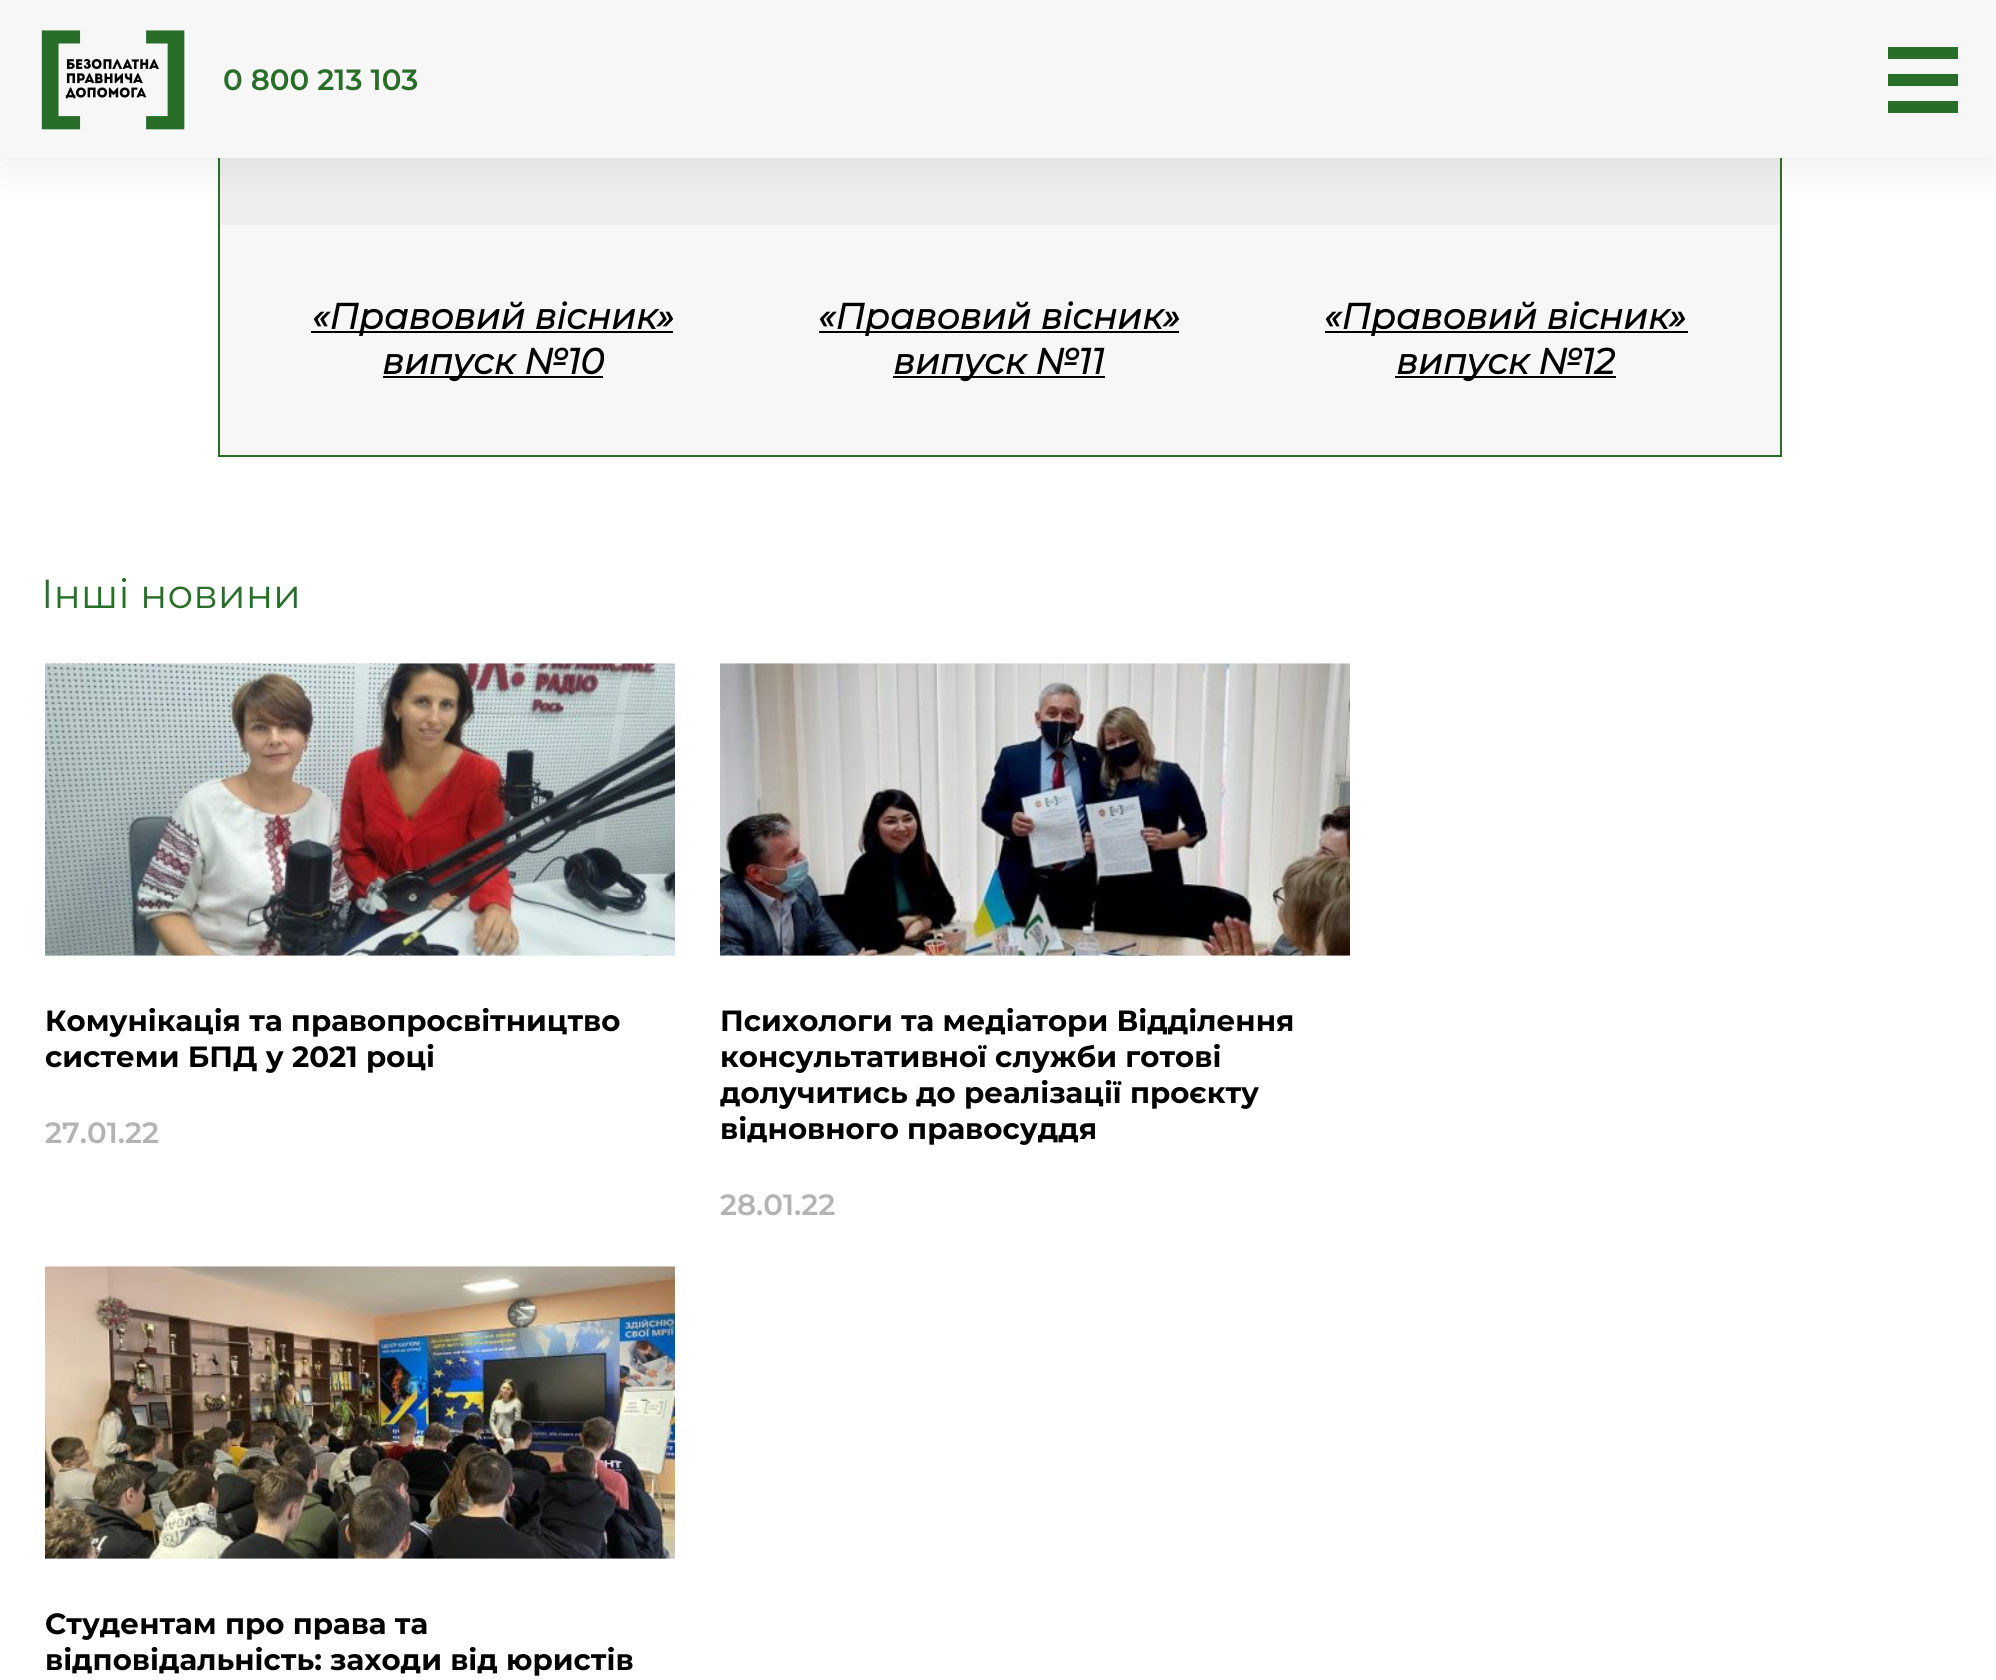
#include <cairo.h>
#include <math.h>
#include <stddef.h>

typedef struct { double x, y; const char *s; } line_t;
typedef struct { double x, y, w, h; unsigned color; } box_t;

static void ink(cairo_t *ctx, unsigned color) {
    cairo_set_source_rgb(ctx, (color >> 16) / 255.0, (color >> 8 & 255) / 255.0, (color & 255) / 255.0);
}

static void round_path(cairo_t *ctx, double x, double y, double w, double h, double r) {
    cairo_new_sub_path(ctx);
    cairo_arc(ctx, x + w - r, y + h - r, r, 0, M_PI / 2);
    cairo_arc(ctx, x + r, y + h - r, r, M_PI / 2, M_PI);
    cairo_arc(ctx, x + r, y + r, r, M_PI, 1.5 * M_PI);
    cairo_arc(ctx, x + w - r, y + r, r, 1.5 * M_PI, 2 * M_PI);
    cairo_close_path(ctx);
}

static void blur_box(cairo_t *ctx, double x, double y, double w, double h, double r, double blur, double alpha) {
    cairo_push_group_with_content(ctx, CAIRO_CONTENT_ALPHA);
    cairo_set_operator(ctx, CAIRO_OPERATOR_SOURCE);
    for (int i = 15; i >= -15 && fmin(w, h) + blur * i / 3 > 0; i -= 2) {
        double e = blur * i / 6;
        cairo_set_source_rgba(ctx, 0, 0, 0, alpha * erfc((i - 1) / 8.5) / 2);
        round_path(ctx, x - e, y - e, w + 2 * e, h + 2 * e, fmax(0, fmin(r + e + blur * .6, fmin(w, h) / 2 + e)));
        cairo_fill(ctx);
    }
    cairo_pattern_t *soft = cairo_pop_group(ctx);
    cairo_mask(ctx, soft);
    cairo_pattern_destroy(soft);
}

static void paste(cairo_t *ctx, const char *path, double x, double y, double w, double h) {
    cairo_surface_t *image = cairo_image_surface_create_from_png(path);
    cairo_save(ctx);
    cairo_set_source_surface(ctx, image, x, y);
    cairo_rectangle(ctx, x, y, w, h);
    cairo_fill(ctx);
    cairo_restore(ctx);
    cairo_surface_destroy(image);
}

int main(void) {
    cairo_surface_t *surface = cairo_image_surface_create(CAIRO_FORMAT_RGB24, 1996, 1680);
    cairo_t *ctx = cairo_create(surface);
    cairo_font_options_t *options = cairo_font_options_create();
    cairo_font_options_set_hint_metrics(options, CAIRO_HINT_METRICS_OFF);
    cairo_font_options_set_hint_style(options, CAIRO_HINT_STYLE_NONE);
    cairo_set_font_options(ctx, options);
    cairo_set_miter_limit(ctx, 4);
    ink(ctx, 0xFFFFFF);
    cairo_paint(ctx);
    {
        static const box_t items[] = {
            {1780, 158, 2, 299, 0x286E28},
            {218, 455, 1564, 2, 0x286E28},
            {218, 158, 2, 299, 0x286E28},
            {220, 158, 1560, 67, 0xEEEEEE},
            {220, 225, 1560, 230, 0xF7F7F7},
        };
        for (size_t i = 0; i < sizeof items / sizeof *items; i++) {
            ink(ctx, items[i].color);
            cairo_rectangle(ctx, items[i].x, items[i].y, items[i].w, items[i].h);
            cairo_fill(ctx);
        }
    }
    ink(ctx, 0x000000);
    blur_box(ctx, 0, 7, 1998, 157, 0, 22.5, 0.08);
    ink(ctx, 0xF7F7F7);
    cairo_rectangle(ctx, 0, 0, 1996, 158);
    cairo_fill(ctx);
    paste(ctx, "media/1.png", 41, 30, 144, 100);
    cairo_select_font_face(ctx, "Montserrat SemiBold", CAIRO_FONT_SLANT_NORMAL, CAIRO_FONT_WEIGHT_NORMAL);
    cairo_set_font_size(ctx, 29.25);
    ink(ctx, 0x286E28);
    cairo_move_to(ctx, 223, 90);
    cairo_show_text(ctx, "0 800 213 103");
    {
        static const box_t items[] = {
            {1888, 47, 70, 12, 0x286E28},
            {1888, 74, 70, 12, 0x286E28},
            {1888, 101, 70, 12, 0x286E28},
            {311, 331, 362, 2, 0x000000},
        };
        for (size_t i = 0; i < sizeof items / sizeof *items; i++) {
            ink(ctx, items[i].color);
            cairo_rectangle(ctx, items[i].x, items[i].y, items[i].w, items[i].h);
            cairo_fill(ctx);
        }
    }
    cairo_select_font_face(ctx, "Montserrat", CAIRO_FONT_SLANT_ITALIC, CAIRO_FONT_WEIGHT_BOLD);
    cairo_set_font_size(ctx, 36);
    cairo_move_to(ctx, 312, 329);
    cairo_show_text(ctx, "«Правовий вісник»");
    cairo_rectangle(ctx, 383, 376, 220, 2);
    cairo_fill(ctx);
    cairo_move_to(ctx, 382, 374);
    cairo_show_text(ctx, "випуск №10");
    cairo_rectangle(ctx, 819, 331, 360, 2);
    cairo_fill(ctx);
    cairo_move_to(ctx, 818, 329);
    cairo_show_text(ctx, "«Правовий вісник»");
    cairo_rectangle(ctx, 893, 376, 212, 2);
    cairo_fill(ctx);
    cairo_move_to(ctx, 893, 374);
    cairo_show_text(ctx, "випуск №11");
    cairo_rectangle(ctx, 1325, 331, 363, 2);
    cairo_fill(ctx);
    cairo_move_to(ctx, 1324, 329);
    cairo_show_text(ctx, "«Правовий вісник»");
    cairo_rectangle(ctx, 1395, 376, 221, 2);
    cairo_fill(ctx);
    cairo_move_to(ctx, 1396, 374);
    cairo_show_text(ctx, "випуск №12");
    cairo_select_font_face(ctx, "Montserrat", CAIRO_FONT_SLANT_NORMAL, CAIRO_FONT_WEIGHT_NORMAL);
    cairo_set_font_size(ctx, 40.5);
    ink(ctx, 0x286E28);
    cairo_move_to(ctx, 41, 608);
    cairo_show_text(ctx, "Інші новини");
    ink(ctx, 0xF7F7F7);
    cairo_rectangle(ctx, 45, 955, 630, 1);
    cairo_fill(ctx);
    paste(ctx, "media/2.png", 45, 663, 630, 293);
    cairo_select_font_face(ctx, "Montserrat", CAIRO_FONT_SLANT_NORMAL, CAIRO_FONT_WEIGHT_BOLD);
    cairo_set_font_size(ctx, 29.25);
    ink(ctx, 0x000000);
    cairo_move_to(ctx, 45, 1031);
    cairo_show_text(ctx, "Комунікація та правопросвітництво");
    cairo_move_to(ctx, 45, 1067);
    cairo_show_text(ctx, "системи БПД у 2021 році");
    cairo_select_font_face(ctx, "Montserrat SemiBold", CAIRO_FONT_SLANT_NORMAL, CAIRO_FONT_WEIGHT_NORMAL);
    ink(ctx, 0xB3B3B3);
    cairo_move_to(ctx, 45, 1143);
    cairo_show_text(ctx, "27.01.22");
    ink(ctx, 0xF7F7F7);
    cairo_rectangle(ctx, 720, 955, 630, 1);
    cairo_fill(ctx);
    paste(ctx, "media/3.png", 720, 663, 630, 293);
    cairo_select_font_face(ctx, "Montserrat", CAIRO_FONT_SLANT_NORMAL, CAIRO_FONT_WEIGHT_BOLD);
    ink(ctx, 0x000000);
    {
        static const line_t items[] = {
            {720, 1031, "Психологи та медіатори Відділення"},
            {720, 1067, "консультативної служби готові"},
            {720, 1103, "долучитись до реалізації проєкту"},
            {720, 1139, "відновного правосуддя"},
        };
        for (size_t i = 0; i < sizeof items / sizeof *items; i++) {
            cairo_move_to(ctx, items[i].x, items[i].y);
            cairo_show_text(ctx, items[i].s);
        }
    }
    cairo_select_font_face(ctx, "Montserrat SemiBold", CAIRO_FONT_SLANT_NORMAL, CAIRO_FONT_WEIGHT_NORMAL);
    ink(ctx, 0xB3B3B3);
    cairo_move_to(ctx, 720, 1215);
    cairo_show_text(ctx, "28.01.22");
    ink(ctx, 0xF7F7F7);
    cairo_rectangle(ctx, 45, 1558, 630, 1);
    cairo_fill(ctx);
    paste(ctx, "media/4.png", 45, 1266, 630, 293);
    cairo_select_font_face(ctx, "Montserrat", CAIRO_FONT_SLANT_NORMAL, CAIRO_FONT_WEIGHT_BOLD);
    ink(ctx, 0x000000);
    cairo_move_to(ctx, 45, 1634);
    cairo_show_text(ctx, "Студентам про права та");
    cairo_move_to(ctx, 45, 1670);
    cairo_show_text(ctx, "відповідальність: заходи від юристів");
    cairo_surface_write_to_png(surface, "image.png");
    cairo_font_options_destroy(options);
    cairo_destroy(ctx);
    cairo_surface_destroy(surface);
    return 0;
}
